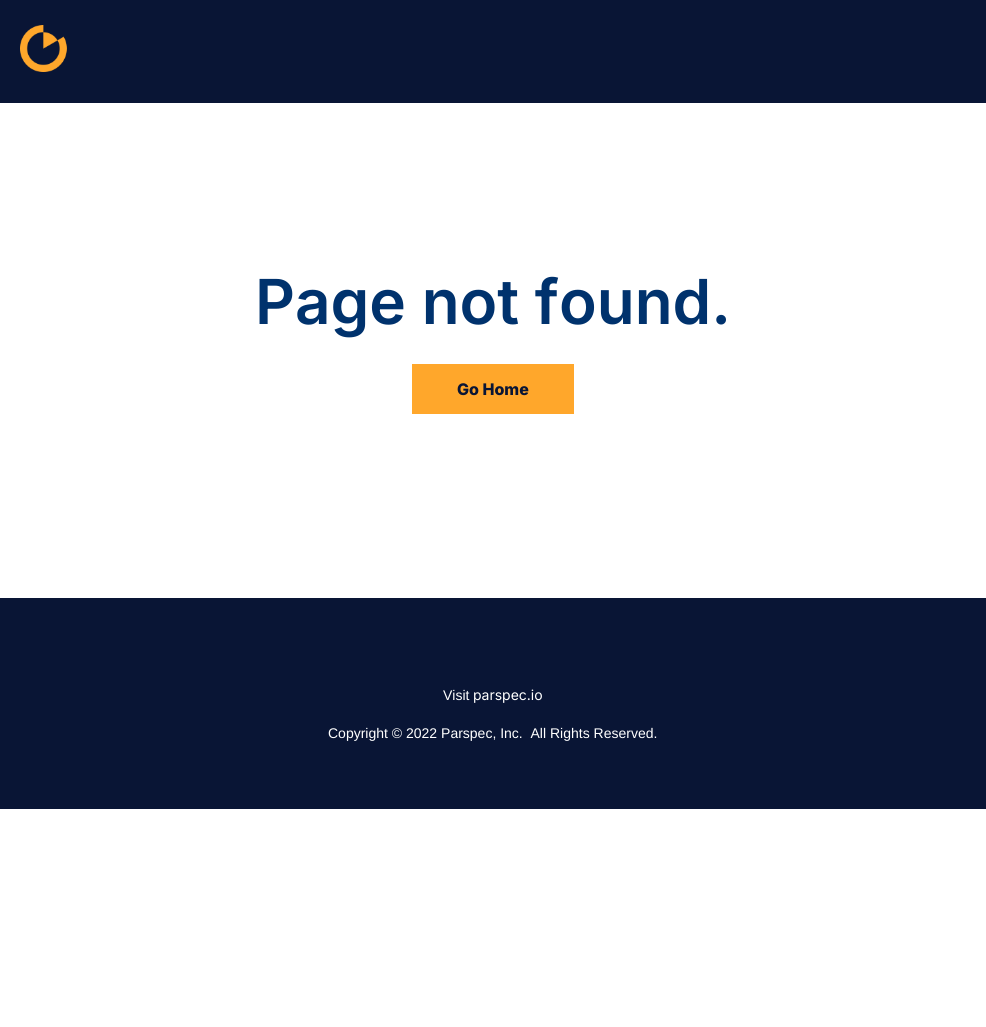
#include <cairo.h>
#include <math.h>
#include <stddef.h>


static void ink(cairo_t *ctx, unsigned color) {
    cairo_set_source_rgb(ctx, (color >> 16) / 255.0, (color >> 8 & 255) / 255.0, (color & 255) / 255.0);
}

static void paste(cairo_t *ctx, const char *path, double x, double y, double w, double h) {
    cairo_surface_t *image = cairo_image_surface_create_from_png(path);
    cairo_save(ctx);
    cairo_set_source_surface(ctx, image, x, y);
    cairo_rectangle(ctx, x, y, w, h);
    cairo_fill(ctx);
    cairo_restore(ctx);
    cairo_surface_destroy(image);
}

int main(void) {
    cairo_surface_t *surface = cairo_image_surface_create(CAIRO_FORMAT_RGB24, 986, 1027);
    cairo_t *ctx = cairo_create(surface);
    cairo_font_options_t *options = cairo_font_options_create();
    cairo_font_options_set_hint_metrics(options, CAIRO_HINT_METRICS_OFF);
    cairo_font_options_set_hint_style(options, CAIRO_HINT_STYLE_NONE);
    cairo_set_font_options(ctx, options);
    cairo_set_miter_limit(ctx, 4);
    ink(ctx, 0xFFFFFF);
    cairo_paint(ctx);
    ink(ctx, 0x091535);
    cairo_rectangle(ctx, 0, 0, 986, 103);
    cairo_fill(ctx);
    paste(ctx, "media/1.png", 20, 25, 47, 47);
    cairo_select_font_face(ctx, "Inter SemiBold", CAIRO_FONT_SLANT_NORMAL, CAIRO_FONT_WEIGHT_NORMAL);
    cairo_set_font_size(ctx, 62);
    ink(ctx, 0x00326D);
    cairo_move_to(ctx, 255, 324);
    cairo_show_text(ctx, "Page not found.");
    ink(ctx, 0xFFA72B);
    cairo_rectangle(ctx, 412, 364, 162, 50);
    cairo_fill(ctx);
    cairo_select_font_face(ctx, "Inter ExtraBold", CAIRO_FONT_SLANT_NORMAL, CAIRO_FONT_WEIGHT_NORMAL);
    cairo_set_font_size(ctx, 16);
    ink(ctx, 0x091535);
    cairo_move_to(ctx, 457, 395);
    cairo_show_text(ctx, "Go Home");
    cairo_rectangle(ctx, 0, 598, 986, 211);
    cairo_fill(ctx);
    cairo_select_font_face(ctx, "Liberation Sans", CAIRO_FONT_SLANT_NORMAL, CAIRO_FONT_WEIGHT_NORMAL);
    cairo_set_font_size(ctx, 14);
    ink(ctx, 0xFFFFFF);
    cairo_move_to(ctx, 443, 700);
    cairo_show_text(ctx, "Visit");
    cairo_select_font_face(ctx, "Inter", CAIRO_FONT_SLANT_NORMAL, CAIRO_FONT_WEIGHT_NORMAL);
    cairo_move_to(ctx, 473, 700);
    cairo_show_text(ctx, "parspec.io");
    cairo_select_font_face(ctx, "Liberation Sans", CAIRO_FONT_SLANT_NORMAL, CAIRO_FONT_WEIGHT_NORMAL);
    cairo_move_to(ctx, 328, 738);
    cairo_show_text(ctx, "Copyright © 2022 Parspec, Inc.  All Rights Reserved.");
    cairo_surface_write_to_png(surface, "image.png");
    cairo_font_options_destroy(options);
    cairo_destroy(ctx);
    cairo_surface_destroy(surface);
    return 0;
}
